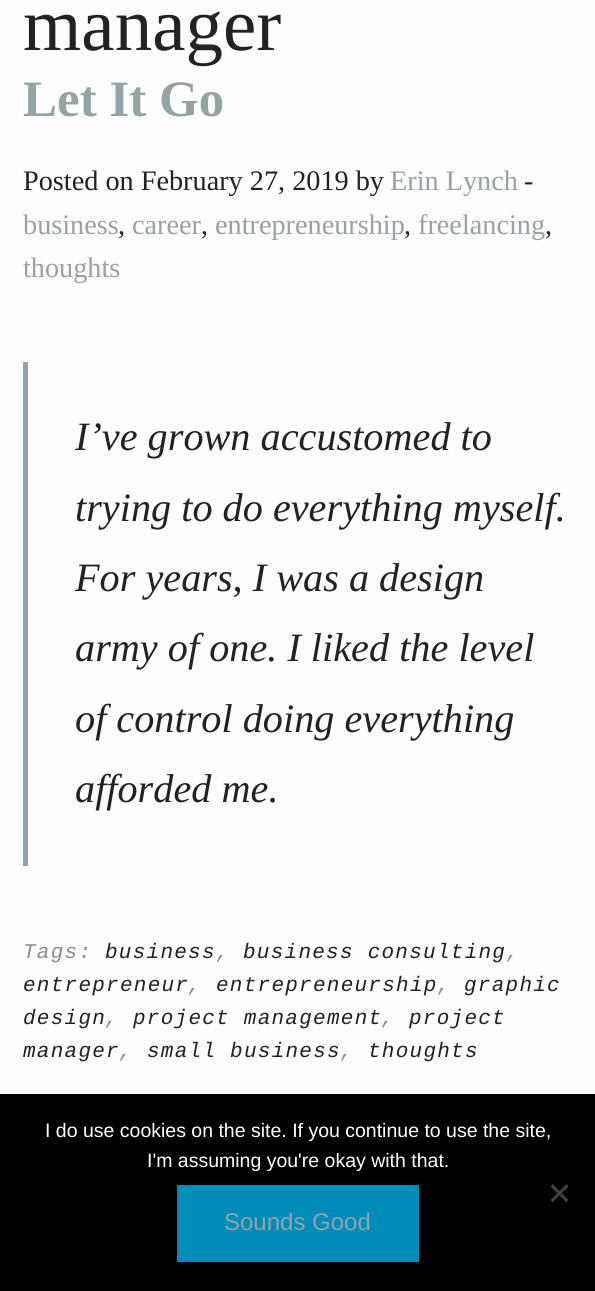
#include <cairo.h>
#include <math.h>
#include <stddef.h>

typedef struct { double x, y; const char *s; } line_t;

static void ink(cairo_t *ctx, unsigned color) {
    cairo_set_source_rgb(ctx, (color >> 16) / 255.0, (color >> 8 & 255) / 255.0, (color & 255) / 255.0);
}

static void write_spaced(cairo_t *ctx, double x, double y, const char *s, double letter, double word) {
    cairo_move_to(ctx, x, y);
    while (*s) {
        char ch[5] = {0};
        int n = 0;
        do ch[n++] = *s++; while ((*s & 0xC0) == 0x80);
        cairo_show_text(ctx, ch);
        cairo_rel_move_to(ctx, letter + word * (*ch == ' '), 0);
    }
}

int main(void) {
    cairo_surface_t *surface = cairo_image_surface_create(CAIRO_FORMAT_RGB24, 595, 1291);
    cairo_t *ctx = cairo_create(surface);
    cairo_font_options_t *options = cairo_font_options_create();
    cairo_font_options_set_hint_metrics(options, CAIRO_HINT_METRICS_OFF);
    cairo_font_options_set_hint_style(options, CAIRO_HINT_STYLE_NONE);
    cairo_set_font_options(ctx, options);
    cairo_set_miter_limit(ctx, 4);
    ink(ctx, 0xFCFCFC);
    cairo_paint(ctx);
    cairo_select_font_face(ctx, "Liberation Serif", CAIRO_FONT_SLANT_NORMAL, CAIRO_FONT_WEIGHT_NORMAL);
    cairo_set_font_size(ctx, 75);
    ink(ctx, 0x222222);
    cairo_move_to(ctx, 23, 50);
    cairo_show_text(ctx, "manager");
    cairo_select_font_face(ctx, "Liberation Serif", CAIRO_FONT_SLANT_NORMAL, CAIRO_FONT_WEIGHT_BOLD);
    cairo_set_font_size(ctx, 51);
    ink(ctx, 0x94A4A4);
    cairo_move_to(ctx, 23, 116);
    cairo_show_text(ctx, "Let It Go");
    cairo_select_font_face(ctx, "Liberation Serif", CAIRO_FONT_SLANT_NORMAL, CAIRO_FONT_WEIGHT_NORMAL);
    cairo_set_font_size(ctx, 28.25);
    ink(ctx, 0x222222);
    cairo_move_to(ctx, 23, 190);
    cairo_show_text(ctx, "Posted on February 27, 2019 by");
    ink(ctx, 0x94A4A4);
    cairo_move_to(ctx, 390, 190);
    cairo_show_text(ctx, "Erin Lynch");
    ink(ctx, 0x222222);
    cairo_move_to(ctx, 524, 190);
    cairo_show_text(ctx, "-");
    ink(ctx, 0x94A4A4);
    cairo_move_to(ctx, 23, 234);
    cairo_show_text(ctx, "business");
    ink(ctx, 0x222222);
    cairo_move_to(ctx, 118, 234);
    cairo_show_text(ctx, ",");
    ink(ctx, 0x94A4A4);
    cairo_move_to(ctx, 132, 234);
    cairo_show_text(ctx, "career");
    ink(ctx, 0x222222);
    cairo_move_to(ctx, 201, 234);
    cairo_show_text(ctx, ",");
    ink(ctx, 0x94A4A4);
    cairo_move_to(ctx, 215, 234);
    cairo_show_text(ctx, "entrepreneurship");
    ink(ctx, 0x222222);
    cairo_move_to(ctx, 404, 234);
    cairo_show_text(ctx, ",");
    ink(ctx, 0x94A4A4);
    cairo_move_to(ctx, 418, 234);
    cairo_show_text(ctx, "freelancing");
    ink(ctx, 0x222222);
    cairo_move_to(ctx, 545, 234);
    cairo_show_text(ctx, ",");
    ink(ctx, 0x94A4A4);
    cairo_move_to(ctx, 23, 277);
    cairo_show_text(ctx, "thoughts");
    cairo_rectangle(ctx, 23, 362, 5, 504);
    cairo_fill(ctx);
    cairo_select_font_face(ctx, "Liberation Serif", CAIRO_FONT_SLANT_ITALIC, CAIRO_FONT_WEIGHT_NORMAL);
    cairo_set_font_size(ctx, 40.25);
    ink(ctx, 0x222222);
    {
        static const line_t items[] = {
            {75, 450, "I’ve grown accustomed to"},
            {75, 521, "trying to do everything myself."},
            {75, 591, "For years, I was a design"},
            {75, 661, "army of one. I liked the level"},
            {75, 732, "of control doing everything"},
            {75, 802, "afforded me."},
        };
        for (size_t i = 0; i < sizeof items / sizeof *items; i++) {
            cairo_move_to(ctx, items[i].x, items[i].y);
            cairo_show_text(ctx, items[i].s);
        }
    }
    cairo_select_font_face(ctx, "Liberation Mono", CAIRO_FONT_SLANT_ITALIC, CAIRO_FONT_WEIGHT_NORMAL);
    cairo_set_font_size(ctx, 21);
    ink(ctx, 0x8D8D8D);
    write_spaced(ctx, 23, 958, "Tags:", 1.25, 0);
    ink(ctx, 0x222222);
    write_spaced(ctx, 105, 958, "business", 1.25, 0);
    ink(ctx, 0x8D8D8D);
    write_spaced(ctx, 216, 958, ",", 1.25, 0);
    ink(ctx, 0x222222);
    write_spaced(ctx, 243, 958, "business consulting", 1.25, 0);
    ink(ctx, 0x8D8D8D);
    write_spaced(ctx, 506, 958, ",", 1.25, 0);
    ink(ctx, 0x222222);
    write_spaced(ctx, 23, 991, "entrepreneur", 1.25, 0);
    ink(ctx, 0x8D8D8D);
    write_spaced(ctx, 188, 991, ",", 1.25, 0);
    ink(ctx, 0x222222);
    write_spaced(ctx, 216, 991, "entrepreneurship", 1.25, 0);
    ink(ctx, 0x8D8D8D);
    write_spaced(ctx, 437, 991, ",", 1.25, 0);
    ink(ctx, 0x222222);
    write_spaced(ctx, 464, 991, "graphic", 1.25, 0);
    write_spaced(ctx, 23, 1024, "design", 1.25, 0);
    ink(ctx, 0x8D8D8D);
    write_spaced(ctx, 105, 1024, ",", 1.25, 0);
    ink(ctx, 0x222222);
    write_spaced(ctx, 133, 1024, "project management", 1.25, 0);
    ink(ctx, 0x8D8D8D);
    write_spaced(ctx, 381, 1024, ",", 1.25, 0);
    ink(ctx, 0x222222);
    write_spaced(ctx, 409, 1024, "project", 1.25, 0);
    write_spaced(ctx, 23, 1057, "manager", 1.25, 0);
    ink(ctx, 0x8D8D8D);
    write_spaced(ctx, 119, 1057, ",", 1.25, 0);
    ink(ctx, 0x222222);
    write_spaced(ctx, 147, 1057, "small business", 1.25, 0);
    ink(ctx, 0x8D8D8D);
    write_spaced(ctx, 340, 1057, ",", 1.25, 0);
    ink(ctx, 0x222222);
    write_spaced(ctx, 368, 1057, "thoughts", 1.25, 0);
    ink(ctx, 0x000000);
    cairo_rectangle(ctx, 0, 1094, 595, 197);
    cairo_fill(ctx);
    cairo_select_font_face(ctx, "Liberation Sans", CAIRO_FONT_SLANT_NORMAL, CAIRO_FONT_WEIGHT_NORMAL);
    cairo_set_font_size(ctx, 19.5);
    ink(ctx, 0xFFFFFF);
    cairo_move_to(ctx, 45, 1137);
    cairo_show_text(ctx, "I do use cookies on the site. If you continue to use the site,");
    cairo_move_to(ctx, 147, 1167);
    cairo_show_text(ctx, "I'm assuming you're okay with that.");
    ink(ctx, 0x404040);
    cairo_new_path(ctx);
    cairo_move_to(ctx, 566.5, 1184);
    cairo_line_to(ctx, 568.5, 1186.5);
    cairo_line_to(ctx, 552.5, 1202.5);
    cairo_line_to(ctx, 550.5, 1200);
    cairo_close_path(ctx);
    cairo_fill(ctx);
    cairo_new_path(ctx);
    cairo_move_to(ctx, 550.5, 1186.5);
    cairo_line_to(ctx, 552.5, 1184);
    cairo_line_to(ctx, 568.5, 1200);
    cairo_line_to(ctx, 566.5, 1202.5);
    cairo_close_path(ctx);
    cairo_fill(ctx);
    ink(ctx, 0x008CBA);
    cairo_rectangle(ctx, 177, 1185, 242, 77);
    cairo_fill(ctx);
    cairo_set_font_size(ctx, 24);
    ink(ctx, 0x94A4A4);
    cairo_move_to(ctx, 224, 1230);
    cairo_show_text(ctx, "Sounds Good");
    cairo_surface_write_to_png(surface, "image.png");
    cairo_font_options_destroy(options);
    cairo_destroy(ctx);
    cairo_surface_destroy(surface);
    return 0;
}
